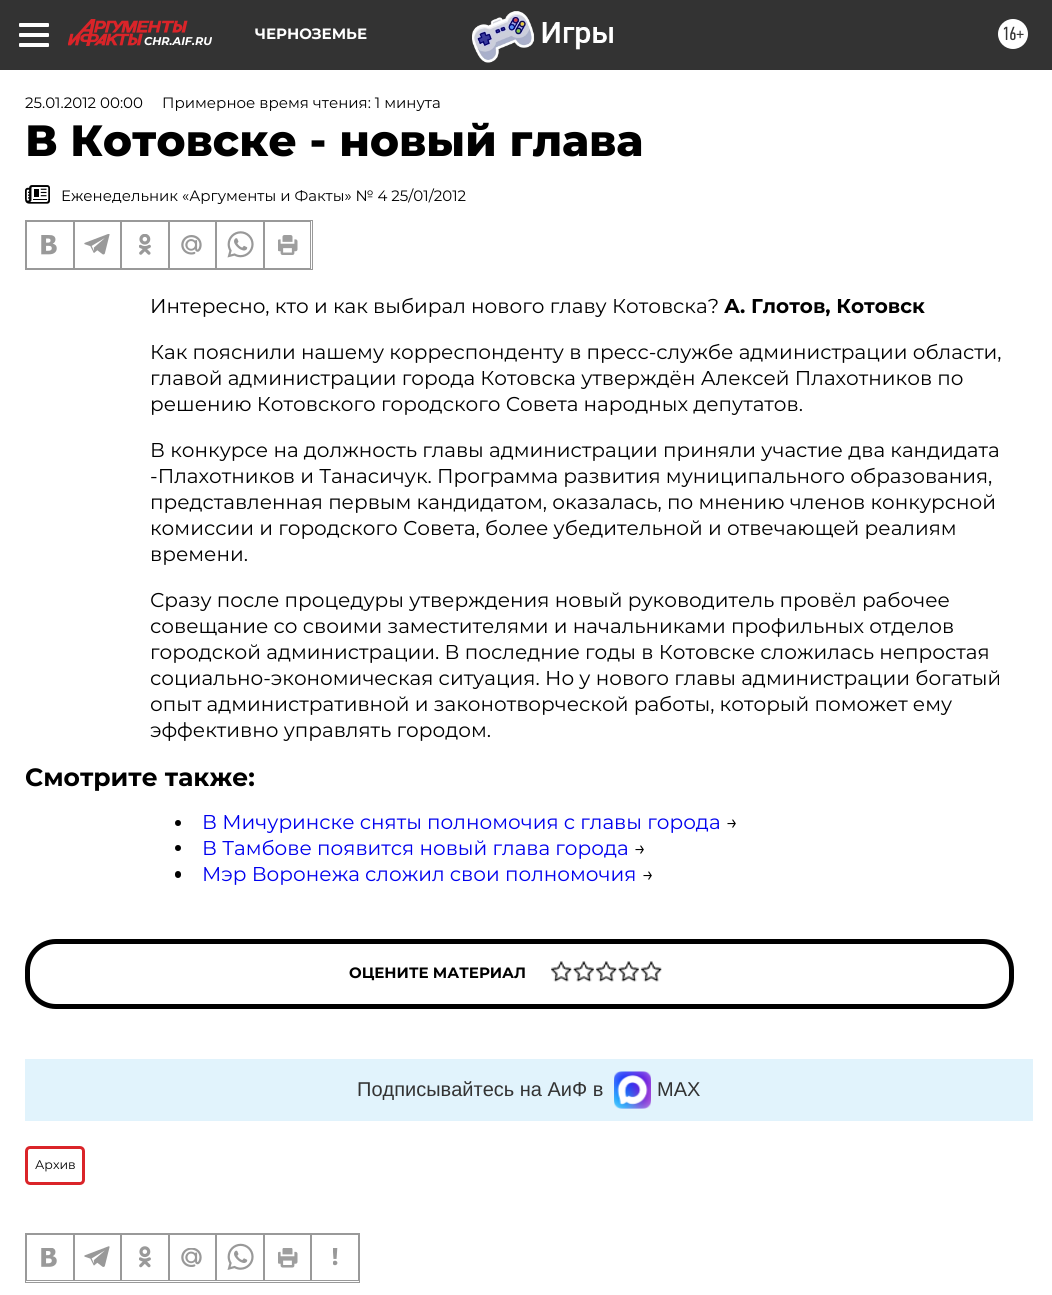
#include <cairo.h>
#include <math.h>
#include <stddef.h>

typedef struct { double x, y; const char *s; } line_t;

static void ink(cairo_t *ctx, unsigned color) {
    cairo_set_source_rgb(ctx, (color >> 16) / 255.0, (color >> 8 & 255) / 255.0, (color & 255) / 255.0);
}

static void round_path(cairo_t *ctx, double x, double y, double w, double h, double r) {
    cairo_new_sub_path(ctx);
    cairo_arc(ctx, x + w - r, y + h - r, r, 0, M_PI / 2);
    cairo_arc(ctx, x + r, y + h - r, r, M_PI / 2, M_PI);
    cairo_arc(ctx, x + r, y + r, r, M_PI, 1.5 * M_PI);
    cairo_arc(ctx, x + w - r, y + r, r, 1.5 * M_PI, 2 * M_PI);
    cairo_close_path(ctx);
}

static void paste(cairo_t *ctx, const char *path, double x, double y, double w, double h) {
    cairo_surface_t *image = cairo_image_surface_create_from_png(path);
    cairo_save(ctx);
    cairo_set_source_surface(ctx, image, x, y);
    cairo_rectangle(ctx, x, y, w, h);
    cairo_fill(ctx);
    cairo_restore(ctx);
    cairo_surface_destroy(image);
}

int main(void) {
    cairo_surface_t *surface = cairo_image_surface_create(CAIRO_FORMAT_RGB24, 1052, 1295);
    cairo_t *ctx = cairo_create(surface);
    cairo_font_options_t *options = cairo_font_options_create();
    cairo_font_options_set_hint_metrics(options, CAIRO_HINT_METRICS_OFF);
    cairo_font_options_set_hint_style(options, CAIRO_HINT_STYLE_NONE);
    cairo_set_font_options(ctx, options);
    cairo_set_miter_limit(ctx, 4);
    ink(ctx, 0xFFFFFF);
    cairo_paint(ctx);
    ink(ctx, 0x333333);
    cairo_rectangle(ctx, 0, 0, 1052, 70);
    cairo_fill(ctx);
    ink(ctx, 0xFFFFFF);
    round_path(ctx, 19, 23, 30, 4, 1);
    cairo_fill(ctx);
    round_path(ctx, 19, 33, 30, 4, 1);
    cairo_fill(ctx);
    round_path(ctx, 19, 43, 30, 4, 1);
    cairo_fill(ctx);
    cairo_select_font_face(ctx, "Montserrat", CAIRO_FONT_SLANT_NORMAL, CAIRO_FONT_WEIGHT_BOLD);
    cairo_set_font_size(ctx, 15);
    cairo_move_to(ctx, 255, 39);
    cairo_show_text(ctx, "ЧЕРНОЗЕМЬЕ");
    paste(ctx, "media/1.png", 472, 11, 141, 52);
    cairo_arc(ctx, 1013, 34, 15, 0, 2 * M_PI);
    cairo_fill(ctx);
    cairo_select_font_face(ctx, "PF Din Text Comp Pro", CAIRO_FONT_SLANT_NORMAL, CAIRO_FONT_WEIGHT_NORMAL);
    cairo_set_font_size(ctx, 19);
    ink(ctx, 0x333333);
    cairo_move_to(ctx, 1002, 40);
    cairo_show_text(ctx, "16+");
    paste(ctx, "media/2.png", 68, 19, 120, 27);
    cairo_select_font_face(ctx, "Montserrat", CAIRO_FONT_SLANT_ITALIC, CAIRO_FONT_WEIGHT_BOLD);
    cairo_set_font_size(ctx, 11.25);
    ink(ctx, 0xFFFFFF);
    cairo_move_to(ctx, 144, 45);
    cairo_show_text(ctx, "CHR.AIF.RU");
    cairo_select_font_face(ctx, "Montserrat", CAIRO_FONT_SLANT_NORMAL, CAIRO_FONT_WEIGHT_NORMAL);
    cairo_set_font_size(ctx, 15);
    ink(ctx, 0x000000);
    cairo_move_to(ctx, 25, 108);
    cairo_show_text(ctx, "25.01.2012 00:00");
    cairo_move_to(ctx, 162, 108);
    cairo_show_text(ctx, "Примерное время чтения: 1 минута");
    cairo_select_font_face(ctx, "Montserrat ExtraBold", CAIRO_FONT_SLANT_NORMAL, CAIRO_FONT_WEIGHT_NORMAL);
    cairo_set_font_size(ctx, 43.75);
    cairo_move_to(ctx, 25, 156);
    cairo_show_text(ctx, "В Котовске - новый глава");
    paste(ctx, "media/3.png", 25, 185, 25, 19);
    cairo_select_font_face(ctx, "Montserrat", CAIRO_FONT_SLANT_NORMAL, CAIRO_FONT_WEIGHT_NORMAL);
    cairo_set_font_size(ctx, 15);
    cairo_move_to(ctx, 61, 201);
    cairo_show_text(ctx, "Еженедельник «Аргументы и Факты» № 4 25/01/2012");
    cairo_rectangle(ctx, 25.5, 220.5, 287, 49);
    ink(ctx, 0x999999);
    cairo_set_line_width(ctx, 1);
    cairo_stroke(ctx);
    cairo_rectangle(ctx, 26.5, 221.5, 47, 47);
    cairo_stroke(ctx);
    paste(ctx, "media/4.png", 41, 235, 16, 20);
    cairo_rectangle(ctx, 74.5, 221.5, 46, 47);
    cairo_stroke(ctx);
    paste(ctx, "media/5.png", 84, 234, 26, 21);
    cairo_rectangle(ctx, 121.5, 221.5, 47, 47);
    cairo_stroke(ctx);
    paste(ctx, "media/6.png", 139, 234, 12, 21);
    cairo_rectangle(ctx, 169.5, 221.5, 46, 47);
    cairo_stroke(ctx);
    paste(ctx, "media/7.png", 181, 235, 21, 20);
    cairo_rectangle(ctx, 216.5, 221.5, 47, 47);
    cairo_stroke(ctx);
    paste(ctx, "media/8.png", 227, 231, 27, 27);
    cairo_rectangle(ctx, 264.5, 221.5, 46, 47);
    cairo_stroke(ctx);
    paste(ctx, "media/9.png", 278, 235, 20, 20);
    cairo_set_font_size(ctx, 20);
    ink(ctx, 0x000000);
    cairo_move_to(ctx, 150, 313);
    cairo_show_text(ctx, "Интересно, кто и как выбирал нового главу Котовска?");
    cairo_select_font_face(ctx, "Montserrat", CAIRO_FONT_SLANT_NORMAL, CAIRO_FONT_WEIGHT_BOLD);
    cairo_move_to(ctx, 724, 313);
    cairo_show_text(ctx, "А. Глотов, Котовск");
    cairo_select_font_face(ctx, "Montserrat", CAIRO_FONT_SLANT_NORMAL, CAIRO_FONT_WEIGHT_NORMAL);
    {
        static const line_t items[] = {
            {150, 359, "Как пояснили нашему корреспонденту в пресс-службе администрации области,"},
            {150, 385, "главой администрации города Котовска утверждён Алексей Плахотников по"},
            {150, 411, "решению Котовского городского Совета народных депутатов."},
            {150, 457, "В конкурсе на должность главы администрации приняли участие два кандидата"},
            {150, 483, "-Плахотников и Танасичук. Программа развития муниципального образования,"},
            {150, 509, "представленная первым кандидатом, оказалась, по мнению членов конкурсной"},
            {150, 535, "комиссии и городского Совета, более убедительной и отвечающей реалиям"},
            {150, 561, "времени."},
            {150, 607, "Сразу после процедуры утверждения новый руководитель провёл рабочее"},
            {150, 633, "совещание со своими заместителями и начальниками профильных отделов"},
            {150, 659, "городской администрации. В последние годы в Котовске сложилась непростая"},
            {150, 685, "социально-экономическая ситуация. Но у нового главы администрации богатый"},
            {150, 711, "опыт административной и законотворческой работы, который поможет ему"},
            {150, 737, "эффективно управлять городом."},
        };
        for (size_t i = 0; i < sizeof items / sizeof *items; i++) {
            cairo_move_to(ctx, items[i].x, items[i].y);
            cairo_show_text(ctx, items[i].s);
        }
    }
    cairo_select_font_face(ctx, "Montserrat", CAIRO_FONT_SLANT_NORMAL, CAIRO_FONT_WEIGHT_BOLD);
    cairo_set_font_size(ctx, 25);
    cairo_move_to(ctx, 25, 786);
    cairo_show_text(ctx, "Смотрите также:");
    cairo_new_path(ctx);
    cairo_arc(ctx, 178, 823, 3, 0, 2 * M_PI);
    cairo_fill(ctx);
    cairo_select_font_face(ctx, "Montserrat", CAIRO_FONT_SLANT_NORMAL, CAIRO_FONT_WEIGHT_NORMAL);
    cairo_set_font_size(ctx, 20);
    ink(ctx, 0x0000EE);
    cairo_move_to(ctx, 202, 829);
    cairo_show_text(ctx, "В Мичуринске сняты полномочия с главы города");
    ink(ctx, 0x000000);
    cairo_move_to(ctx, 726, 829);
    cairo_show_text(ctx, "→");
    cairo_new_path(ctx);
    cairo_arc(ctx, 178, 848, 3, 0, 2 * M_PI);
    cairo_fill(ctx);
    ink(ctx, 0x0000EE);
    cairo_move_to(ctx, 202, 855);
    cairo_show_text(ctx, "В Тамбове появится новый глава города");
    ink(ctx, 0x000000);
    cairo_move_to(ctx, 634, 855);
    cairo_show_text(ctx, "→");
    round_path(ctx, 175, 871, 6, 7, 3);
    cairo_fill(ctx);
    ink(ctx, 0x0000EE);
    cairo_move_to(ctx, 202, 881);
    cairo_show_text(ctx, "Мэр Воронежа сложил свои полномочия");
    ink(ctx, 0x000000);
    cairo_move_to(ctx, 642, 881);
    cairo_show_text(ctx, "→");
    round_path(ctx, 27.5, 941.5, 984, 65, 28.5);
    cairo_set_line_width(ctx, 5);
    cairo_stroke(ctx);
    cairo_select_font_face(ctx, "Montserrat", CAIRO_FONT_SLANT_NORMAL, CAIRO_FONT_WEIGHT_BOLD);
    cairo_set_font_size(ctx, 15);
    cairo_move_to(ctx, 349, 978);
    cairo_show_text(ctx, "ОЦЕНИТЕ МАТЕРИАЛ");
    paste(ctx, "media/10.png", 551, 961, 21, 21);
    paste(ctx, "media/11.png", 573, 961, 21, 21);
    paste(ctx, "media/10.png", 596, 961, 21, 21);
    paste(ctx, "media/12.png", 618, 961, 21, 21);
    paste(ctx, "media/10.png", 641, 961, 21, 21);
    ink(ctx, 0xE1F3FC);
    cairo_rectangle(ctx, 25, 1059, 1008, 62);
    cairo_fill(ctx);
    cairo_select_font_face(ctx, "Liberation Sans", CAIRO_FONT_SLANT_NORMAL, CAIRO_FONT_WEIGHT_NORMAL);
    cairo_set_font_size(ctx, 20);
    ink(ctx, 0x333333);
    cairo_move_to(ctx, 357, 1096);
    cairo_show_text(ctx, "Подписывайтесь на АиФ в");
    paste(ctx, "media/13.png", 614, 1071, 37, 38);
    cairo_move_to(ctx, 657, 1096);
    cairo_show_text(ctx, "MAX");
    round_path(ctx, 26.5, 1147.5, 57, 36, 3.5);
    ink(ctx, 0xDA2429);
    cairo_set_line_width(ctx, 3);
    cairo_stroke(ctx);
    cairo_select_font_face(ctx, "Montserrat", CAIRO_FONT_SLANT_NORMAL, CAIRO_FONT_WEIGHT_NORMAL);
    cairo_set_font_size(ctx, 12.5);
    ink(ctx, 0x000000);
    cairo_move_to(ctx, 35, 1169);
    cairo_show_text(ctx, "Архив");
    cairo_rectangle(ctx, 25.5, 1233.5, 334, 49);
    ink(ctx, 0x999999);
    cairo_set_line_width(ctx, 1);
    cairo_stroke(ctx);
    cairo_rectangle(ctx, 26.5, 1234.5, 47, 46);
    cairo_stroke(ctx);
    paste(ctx, "media/14.png", 41, 1248, 16, 19);
    cairo_rectangle(ctx, 74.5, 1234.5, 46, 46);
    cairo_stroke(ctx);
    paste(ctx, "media/15.png", 84, 1246, 26, 21);
    cairo_rectangle(ctx, 121.5, 1234.5, 47, 46);
    cairo_stroke(ctx);
    paste(ctx, "media/16.png", 139, 1246, 12, 22);
    cairo_rectangle(ctx, 169.5, 1234.5, 46, 46);
    cairo_stroke(ctx);
    paste(ctx, "media/17.png", 181, 1248, 21, 19);
    cairo_rectangle(ctx, 216.5, 1234.5, 47, 46);
    cairo_stroke(ctx);
    paste(ctx, "media/18.png", 227, 1243, 27, 27);
    cairo_rectangle(ctx, 264.5, 1234.5, 46, 46);
    cairo_stroke(ctx);
    paste(ctx, "media/19.png", 278, 1248, 20, 20);
    cairo_rectangle(ctx, 311.5, 1234.5, 47, 46);
    cairo_stroke(ctx);
    paste(ctx, "media/20.png", 333, 1248, 5, 18);
    cairo_surface_write_to_png(surface, "image.png");
    cairo_font_options_destroy(options);
    cairo_destroy(ctx);
    cairo_surface_destroy(surface);
    return 0;
}
